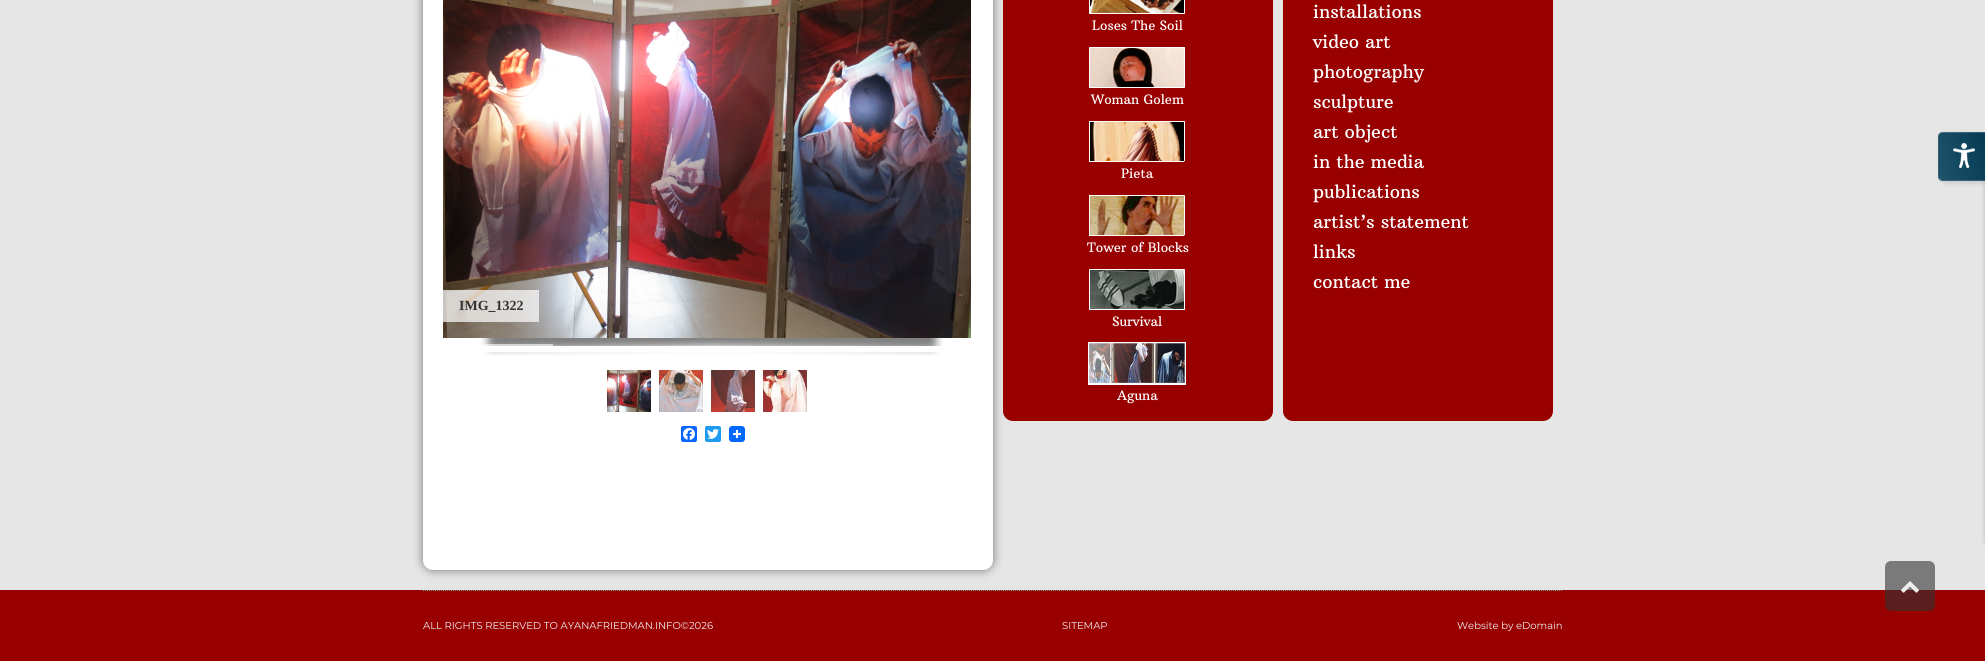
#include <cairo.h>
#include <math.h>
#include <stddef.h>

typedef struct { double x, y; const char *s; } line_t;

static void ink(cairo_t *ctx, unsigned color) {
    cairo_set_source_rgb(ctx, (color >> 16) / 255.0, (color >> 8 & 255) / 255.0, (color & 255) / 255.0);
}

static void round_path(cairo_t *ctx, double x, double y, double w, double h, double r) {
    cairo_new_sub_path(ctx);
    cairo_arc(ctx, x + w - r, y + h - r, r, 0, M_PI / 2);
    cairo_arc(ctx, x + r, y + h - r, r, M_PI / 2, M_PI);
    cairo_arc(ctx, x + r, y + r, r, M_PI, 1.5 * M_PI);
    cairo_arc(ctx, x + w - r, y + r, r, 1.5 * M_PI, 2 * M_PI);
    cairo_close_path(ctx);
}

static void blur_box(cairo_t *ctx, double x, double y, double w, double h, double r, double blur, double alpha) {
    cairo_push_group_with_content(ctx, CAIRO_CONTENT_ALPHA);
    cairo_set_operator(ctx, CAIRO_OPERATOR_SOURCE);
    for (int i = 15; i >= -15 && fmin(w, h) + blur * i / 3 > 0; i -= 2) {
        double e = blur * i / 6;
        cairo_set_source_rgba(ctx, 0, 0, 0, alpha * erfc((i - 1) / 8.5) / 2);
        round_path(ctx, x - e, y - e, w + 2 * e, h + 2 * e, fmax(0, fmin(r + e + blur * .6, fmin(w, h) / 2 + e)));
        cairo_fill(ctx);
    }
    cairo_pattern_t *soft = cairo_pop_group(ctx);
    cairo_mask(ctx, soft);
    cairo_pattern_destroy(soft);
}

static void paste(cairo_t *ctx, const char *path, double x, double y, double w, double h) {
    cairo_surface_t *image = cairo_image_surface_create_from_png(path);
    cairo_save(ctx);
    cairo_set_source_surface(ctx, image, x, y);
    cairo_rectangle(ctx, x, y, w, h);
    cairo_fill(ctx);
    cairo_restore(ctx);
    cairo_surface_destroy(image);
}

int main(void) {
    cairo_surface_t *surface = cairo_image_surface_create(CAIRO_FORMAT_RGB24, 1985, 661);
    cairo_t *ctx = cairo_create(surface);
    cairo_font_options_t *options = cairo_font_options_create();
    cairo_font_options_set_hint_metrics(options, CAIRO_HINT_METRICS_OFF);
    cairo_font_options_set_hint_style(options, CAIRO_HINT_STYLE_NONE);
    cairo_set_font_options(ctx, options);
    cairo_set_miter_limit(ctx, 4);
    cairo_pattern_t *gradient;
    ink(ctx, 0xE6E6E6);
    cairo_paint(ctx);
    ink(ctx, 0x000000);
    blur_box(ctx, 423, -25, 570, 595, 10, 5, 0.5);
    ink(ctx, 0xFFFFFF);
    round_path(ctx, 423, -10, 570, 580, 10);
    cairo_fill(ctx);
    paste(ctx, "media/2.png", 481, 338, 462, 18);
    cairo_rectangle(ctx, 440, -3, 534, 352);
    cairo_set_line_width(ctx, 6);
    cairo_stroke(ctx);
    paste(ctx, "media/1.png", 443, 0, 528, 338);
    cairo_set_source_rgba(ctx, 1, 1, 1, 0.6);
    cairo_rectangle(ctx, 481, 344, 72, 2);
    cairo_fill(ctx);
    cairo_set_source_rgba(ctx, 1, 1, 1, 0.7);
    cairo_rectangle(ctx, 443, 290, 96, 32);
    cairo_fill(ctx);
    cairo_select_font_face(ctx, "Liberation Serif", CAIRO_FONT_SLANT_NORMAL, CAIRO_FONT_WEIGHT_BOLD);
    cairo_set_font_size(ctx, 14);
    ink(ctx, 0x333333);
    cairo_move_to(ctx, 459, 310);
    cairo_show_text(ctx, "IMG_1322");
    paste(ctx, "media/3.png", 607, 370, 44, 42);
    paste(ctx, "media/4.png", 659, 370, 44, 42);
    paste(ctx, "media/5.png", 711, 370, 44, 42);
    paste(ctx, "media/6.png", 763, 370, 44, 42);
    ink(ctx, 0x0866FF);
    round_path(ctx, 681, 426, 16, 16, 2);
    cairo_fill(ctx);
    paste(ctx, "media/7.png", 683, 428, 12, 12);
    ink(ctx, 0x1D9BF0);
    round_path(ctx, 705, 426, 16, 16, 2);
    cairo_fill(ctx);
    paste(ctx, "media/8.png", 707, 429, 12, 10);
    paste(ctx, "media/9.png", 729, 426, 16, 16);
    ink(ctx, 0x990000);
    round_path(ctx, 1003, -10, 270, 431, 10);
    cairo_fill(ctx);
    paste(ctx, "media/10.png", 1089, 0, 96, 14);
    cairo_select_font_face(ctx, "Arbutus Slab", CAIRO_FONT_SLANT_NORMAL, CAIRO_FONT_WEIGHT_NORMAL);
    cairo_set_font_size(ctx, 13);
    ink(ctx, 0xFFFFFF);
    cairo_move_to(ctx, 1092, 30);
    cairo_show_text(ctx, "Loses The Soil");
    paste(ctx, "media/11.png", 1089, 47, 96, 41);
    cairo_move_to(ctx, 1091, 104);
    cairo_show_text(ctx, "Woman Golem");
    paste(ctx, "media/12.png", 1089, 121, 96, 41);
    cairo_move_to(ctx, 1121, 178);
    cairo_show_text(ctx, "Pieta");
    paste(ctx, "media/13.png", 1089, 195, 96, 41);
    cairo_move_to(ctx, 1087, 252);
    cairo_show_text(ctx, "Tower of Blocks");
    paste(ctx, "media/14.png", 1089, 269, 96, 41);
    cairo_move_to(ctx, 1112, 326);
    cairo_show_text(ctx, "Survival");
    paste(ctx, "media/15.png", 1088, 342, 98, 43);
    cairo_move_to(ctx, 1117, 400);
    cairo_show_text(ctx, "Aguna");
    ink(ctx, 0x990000);
    round_path(ctx, 1283, -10, 270, 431, 10);
    cairo_fill(ctx);
    cairo_set_font_size(ctx, 18);
    ink(ctx, 0xFFFFFF);
    {
        static const line_t items[] = {
            {1313, 18, "installations"},
            {1313, 48, "video art"},
            {1313, 78, "photography"},
            {1313, 108, "sculpture"},
            {1313, 138, "art object"},
            {1313, 168, "in the media"},
            {1313, 198, "publications"},
            {1313, 228, "artist’s statement"},
            {1313, 258, "links"},
            {1313, 288, "contact me"},
        };
        for (size_t i = 0; i < sizeof items / sizeof *items; i++) {
            cairo_move_to(ctx, items[i].x, items[i].y);
            cairo_show_text(ctx, items[i].s);
        }
    }
    ink(ctx, 0x990000);
    cairo_rectangle(ctx, 0, 590, 1985, 71);
    cairo_fill(ctx);
    cairo_new_path(ctx);
    cairo_move_to(ctx, 423, 590.5);
    cairo_line_to(ctx, 1563, 590.5);
    ink(ctx, 0x7F8C8D);
    cairo_set_line_width(ctx, 1);
    cairo_set_dash(ctx, (double[]){1, 1}, 2, 0);
    cairo_stroke(ctx);
    cairo_select_font_face(ctx, "Montserrat", CAIRO_FONT_SLANT_NORMAL, CAIRO_FONT_WEIGHT_NORMAL);
    cairo_set_font_size(ctx, 10);
    ink(ctx, 0xECF0F1);
    {
        static const line_t items[] = {
            {423, 629, "ALL RIGHTS RESERVED TO AYANAFRIEDMAN.INFO©2026"},
            {1457, 629, "Website by eDomain"},
            {1062, 629, "SITEMAP"},
        };
        for (size_t i = 0; i < sizeof items / sizeof *items; i++) {
            cairo_move_to(ctx, items[i].x, items[i].y);
            cairo_show_text(ctx, items[i].s);
        }
    }
    ink(ctx, 0x000000);
    blur_box(ctx, 1941, 134, 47, 49, 5, 2.5, 0.14);
    ink(ctx, 0x000101);
    blur_box(ctx, 1985, 137, 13, 409, 5, 2.5, 0.2);
    ink(ctx, 0x095A81);
    cairo_new_path(ctx);
    cairo_move_to(ctx, 1943, 132);
    cairo_line_to(ctx, 1985, 132);
    cairo_line_to(ctx, 1985, 181);
    cairo_line_to(ctx, 1943, 181);
    cairo_curve_to(ctx, 1940, 181, 1938, 179, 1938, 176);
    cairo_line_to(ctx, 1938, 137);
    cairo_curve_to(ctx, 1938, 134, 1940, 132, 1943, 132);
    cairo_close_path(ctx);
    cairo_fill(ctx);
    cairo_save(ctx);
    cairo_new_path(ctx);
    cairo_move_to(ctx, 1943, 132);
    cairo_line_to(ctx, 1985, 132);
    cairo_line_to(ctx, 1985, 181);
    cairo_line_to(ctx, 1943, 181);
    cairo_curve_to(ctx, 1940, 181, 1938, 179, 1938, 176);
    cairo_line_to(ctx, 1938, 137);
    cairo_curve_to(ctx, 1938, 134, 1940, 132, 1943, 132);
    cairo_close_path(ctx);
    cairo_clip(ctx);
    gradient = cairo_pattern_create_linear(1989, 102, 1935, 117);
    cairo_pattern_add_color_stop_rgba(gradient, 0.01, 0, 0, 0, 0.35);
    cairo_pattern_add_color_stop_rgba(gradient, 0.98, 0.263, 0.263, 0.263, 0.35);
    cairo_set_source(ctx, gradient);
    cairo_pattern_destroy(gradient);
    cairo_rectangle(ctx, 1939, 132, 46, 1);
    cairo_fill(ctx);
    gradient = cairo_pattern_create_linear(1943, 149, 1889, 164);
    cairo_pattern_add_color_stop_rgba(gradient, 0.01, 0, 0, 0, 0.35);
    cairo_pattern_add_color_stop_rgba(gradient, 0.98, 0.263, 0.263, 0.263, 0.35);
    cairo_set_source(ctx, gradient);
    cairo_pattern_destroy(gradient);
    cairo_rectangle(ctx, 1938, 133, 1, 47);
    cairo_fill(ctx);
    cairo_restore(ctx);
    gradient = cairo_pattern_create_linear(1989, 149, 1935, 164);
    cairo_pattern_add_color_stop_rgba(gradient, 0.01, 0, 0, 0, 0.35);
    cairo_pattern_add_color_stop_rgba(gradient, 0.98, 0.263, 0.263, 0.263, 0.35);
    cairo_set_source(ctx, gradient);
    cairo_pattern_destroy(gradient);
    cairo_rectangle(ctx, 1939, 133, 46, 47);
    cairo_fill(ctx);
    cairo_save(ctx);
    cairo_new_path(ctx);
    cairo_move_to(ctx, 1943, 132);
    cairo_line_to(ctx, 1985, 132);
    cairo_line_to(ctx, 1985, 181);
    cairo_line_to(ctx, 1943, 181);
    cairo_curve_to(ctx, 1940, 181, 1938, 179, 1938, 176);
    cairo_line_to(ctx, 1938, 137);
    cairo_curve_to(ctx, 1938, 134, 1940, 132, 1943, 132);
    cairo_close_path(ctx);
    cairo_clip(ctx);
    gradient = cairo_pattern_create_linear(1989, 196, 1935, 211);
    cairo_pattern_add_color_stop_rgba(gradient, 0.01, 0, 0, 0, 0.35);
    cairo_pattern_add_color_stop_rgba(gradient, 0.98, 0.263, 0.263, 0.263, 0.35);
    cairo_set_source(ctx, gradient);
    cairo_pattern_destroy(gradient);
    cairo_rectangle(ctx, 1939, 180, 46, 1);
    cairo_fill(ctx);
    cairo_restore(ctx);
    cairo_set_source_rgba(ctx, 1, 1, 1, 0.17);
    cairo_set_fill_rule(ctx, CAIRO_FILL_RULE_EVEN_ODD);
    cairo_new_path(ctx);
    cairo_move_to(ctx, 1943, 132);
    cairo_line_to(ctx, 1985, 132);
    cairo_line_to(ctx, 1985, 181);
    cairo_line_to(ctx, 1943, 181);
    cairo_curve_to(ctx, 1940, 181, 1938, 179, 1938, 176);
    cairo_line_to(ctx, 1938, 137);
    cairo_curve_to(ctx, 1938, 134, 1940, 132, 1943, 132);
    cairo_close_path(ctx);
    cairo_move_to(ctx, 1943, 133);
    cairo_line_to(ctx, 1985, 133);
    cairo_line_to(ctx, 1985, 180);
    cairo_line_to(ctx, 1943, 180);
    cairo_curve_to(ctx, 1941, 180, 1939, 178, 1939, 176);
    cairo_line_to(ctx, 1939, 137);
    cairo_curve_to(ctx, 1939, 135, 1941, 133, 1943, 133);
    cairo_close_path(ctx);
    cairo_fill(ctx);
    paste(ctx, "media/16.png", 1953, 143, 22, 25);
    cairo_set_source_rgba(ctx, 0.2, 0.2, 0.2, 0.6);
    round_path(ctx, 1885, 561, 50, 50, 6);
    cairo_fill(ctx);
    paste(ctx, "media/17.png", 1901, 581, 18, 12);
    cairo_surface_write_to_png(surface, "image.png");
    cairo_font_options_destroy(options);
    cairo_destroy(ctx);
    cairo_surface_destroy(surface);
    return 0;
}
